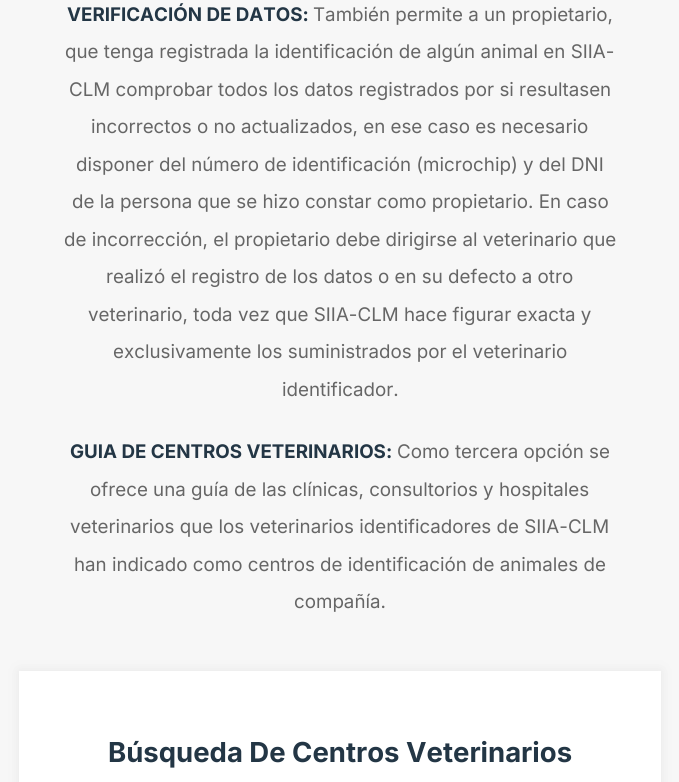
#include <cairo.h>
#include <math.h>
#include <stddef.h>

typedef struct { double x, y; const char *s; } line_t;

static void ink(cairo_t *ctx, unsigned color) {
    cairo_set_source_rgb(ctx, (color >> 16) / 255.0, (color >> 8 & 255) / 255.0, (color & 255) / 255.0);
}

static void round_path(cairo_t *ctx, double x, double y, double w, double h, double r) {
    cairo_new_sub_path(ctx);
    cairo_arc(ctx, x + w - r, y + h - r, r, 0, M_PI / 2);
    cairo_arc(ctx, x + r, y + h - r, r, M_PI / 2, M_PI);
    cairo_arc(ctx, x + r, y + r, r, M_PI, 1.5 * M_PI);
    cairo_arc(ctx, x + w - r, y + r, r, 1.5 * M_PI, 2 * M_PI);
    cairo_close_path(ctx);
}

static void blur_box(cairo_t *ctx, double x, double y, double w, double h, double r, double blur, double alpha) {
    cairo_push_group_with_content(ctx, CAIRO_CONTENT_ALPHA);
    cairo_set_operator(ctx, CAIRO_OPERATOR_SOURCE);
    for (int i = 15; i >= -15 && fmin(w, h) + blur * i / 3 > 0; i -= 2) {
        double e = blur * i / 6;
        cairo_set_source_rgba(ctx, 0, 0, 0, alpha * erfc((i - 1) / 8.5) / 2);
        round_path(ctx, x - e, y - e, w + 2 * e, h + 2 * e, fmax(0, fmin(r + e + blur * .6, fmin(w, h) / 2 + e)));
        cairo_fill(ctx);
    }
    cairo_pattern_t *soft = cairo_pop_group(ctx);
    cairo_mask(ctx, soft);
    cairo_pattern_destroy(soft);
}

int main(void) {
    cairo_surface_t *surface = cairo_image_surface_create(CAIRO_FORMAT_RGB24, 679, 782);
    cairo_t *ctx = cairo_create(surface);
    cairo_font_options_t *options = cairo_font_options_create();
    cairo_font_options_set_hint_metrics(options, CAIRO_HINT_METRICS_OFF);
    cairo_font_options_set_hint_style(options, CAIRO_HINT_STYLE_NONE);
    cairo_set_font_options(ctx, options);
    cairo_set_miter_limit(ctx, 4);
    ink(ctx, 0xF7F7F7);
    cairo_paint(ctx);
    cairo_select_font_face(ctx, "Inter", CAIRO_FONT_SLANT_NORMAL, CAIRO_FONT_WEIGHT_BOLD);
    cairo_set_font_size(ctx, 18.75);
    ink(ctx, 0x233645);
    cairo_move_to(ctx, 67, 21);
    cairo_show_text(ctx, "VERIFICACIÓN DE DATOS:");
    cairo_select_font_face(ctx, "Inter", CAIRO_FONT_SLANT_NORMAL, CAIRO_FONT_WEIGHT_NORMAL);
    ink(ctx, 0x666666);
    {
        static const line_t items[] = {
            {313, 21, "También permite a un propietario,"},
            {65, 58, "que tenga registrada la identificación de algún animal en SIIA-"},
            {69, 96, "CLM comprobar todos los datos registrados por si resultasen"},
            {91, 133, "incorrectos o no actualizados, en ese caso es necesario"},
            {76, 171, "disponer del número de identificación (microchip) y del DNI"},
            {72, 208, "de la persona que se hizo constar como propietario. En caso"},
            {64, 246, "de incorrección, el propietario debe dirigirse al veterinario que"},
            {106, 283, "realizó el registro de los datos o en su defecto a otro"},
            {88, 321, "veterinario, toda vez que SIIA-CLM hace figurar exacta y"},
            {113, 358, "exclusivamente los suministrados por el veterinario"},
            {282, 396, "identificador."},
        };
        for (size_t i = 0; i < sizeof items / sizeof *items; i++) {
            cairo_move_to(ctx, items[i].x, items[i].y);
            cairo_show_text(ctx, items[i].s);
        }
    }
    cairo_select_font_face(ctx, "Inter", CAIRO_FONT_SLANT_NORMAL, CAIRO_FONT_WEIGHT_BOLD);
    ink(ctx, 0x233645);
    cairo_move_to(ctx, 70, 458);
    cairo_show_text(ctx, "GUIA DE CENTROS VETERINARIOS:");
    cairo_select_font_face(ctx, "Inter", CAIRO_FONT_SLANT_NORMAL, CAIRO_FONT_WEIGHT_NORMAL);
    ink(ctx, 0x666666);
    {
        static const line_t items[] = {
            {397, 458, "Como tercera opción se"},
            {90, 496, "ofrece una guía de las clínicas, consultorios y hospitales"},
            {70, 533, "veterinarios que los veterinarios identificadores de SIIA-CLM"},
            {74, 571, "han indicado como centros de identificación de animales de"},
            {294, 608, "compañía."},
        };
        for (size_t i = 0; i < sizeof items / sizeof *items; i++) {
            cairo_move_to(ctx, items[i].x, items[i].y);
            cairo_show_text(ctx, items[i].s);
        }
    }
    ink(ctx, 0xE7E7E7);
    blur_box(ctx, 19, 671, 642, 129, 0, 6, 1);
    ink(ctx, 0xFFFFFF);
    cairo_rectangle(ctx, 19, 671, 642, 111);
    cairo_fill(ctx);
    cairo_select_font_face(ctx, "Inter", CAIRO_FONT_SLANT_NORMAL, CAIRO_FONT_WEIGHT_BOLD);
    cairo_set_font_size(ctx, 27.5);
    ink(ctx, 0x233645);
    cairo_move_to(ctx, 108, 762);
    cairo_show_text(ctx, "Búsqueda De Centros Veterinarios");
    cairo_surface_write_to_png(surface, "image.png");
    cairo_font_options_destroy(options);
    cairo_destroy(ctx);
    cairo_surface_destroy(surface);
    return 0;
}
